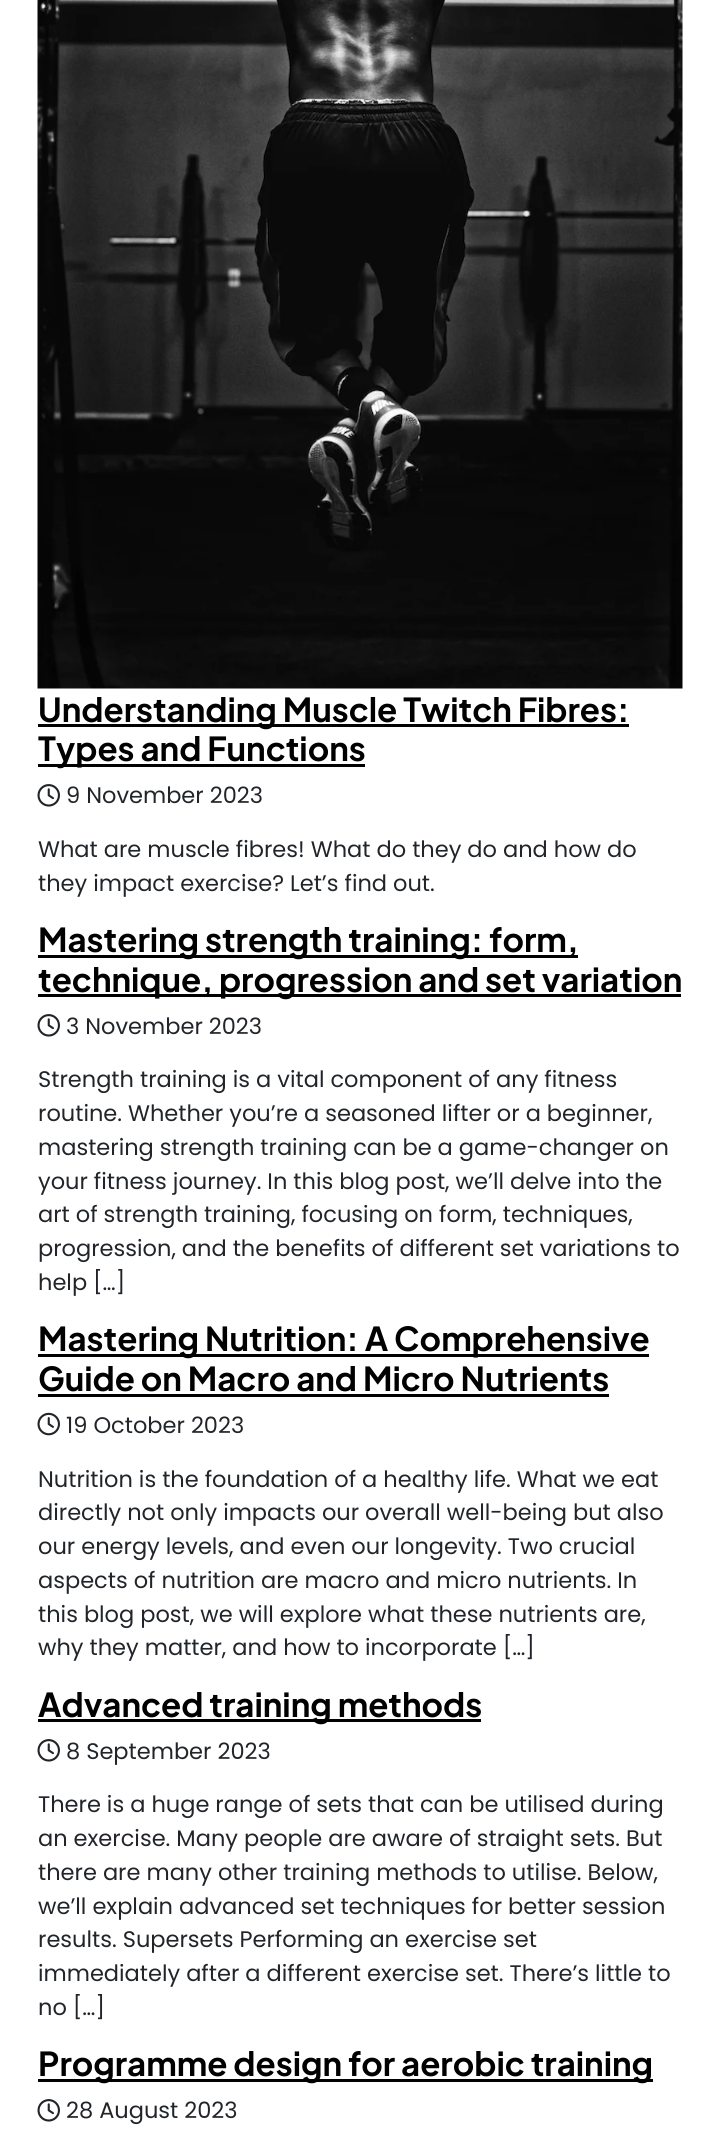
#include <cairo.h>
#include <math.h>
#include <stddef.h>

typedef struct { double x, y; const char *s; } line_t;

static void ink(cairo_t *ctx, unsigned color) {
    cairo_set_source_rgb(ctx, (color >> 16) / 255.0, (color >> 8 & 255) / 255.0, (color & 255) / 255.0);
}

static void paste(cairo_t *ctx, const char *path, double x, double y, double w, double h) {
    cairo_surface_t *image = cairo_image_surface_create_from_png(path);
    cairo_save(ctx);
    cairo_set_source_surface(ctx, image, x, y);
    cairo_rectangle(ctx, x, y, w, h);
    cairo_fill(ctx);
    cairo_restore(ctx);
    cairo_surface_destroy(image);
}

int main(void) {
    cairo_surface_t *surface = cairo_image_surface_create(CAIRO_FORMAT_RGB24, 720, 2151);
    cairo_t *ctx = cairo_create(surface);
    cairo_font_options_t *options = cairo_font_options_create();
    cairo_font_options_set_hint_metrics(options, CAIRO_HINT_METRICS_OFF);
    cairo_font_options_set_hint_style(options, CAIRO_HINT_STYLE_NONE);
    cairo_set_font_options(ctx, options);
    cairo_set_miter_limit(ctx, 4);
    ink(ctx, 0xFFFFFF);
    cairo_paint(ctx);
    paste(ctx, "media/1.png", 37, 0, 646, 689);
    ink(ctx, 0x000000);
    cairo_rectangle(ctx, 38, 724, 591, 3);
    cairo_fill(ctx);
    cairo_select_font_face(ctx, "Plus Jakarta Sans", CAIRO_FONT_SLANT_NORMAL, CAIRO_FONT_WEIGHT_BOLD);
    cairo_set_font_size(ctx, 33);
    cairo_move_to(ctx, 38, 722);
    cairo_show_text(ctx, "Understanding Muscle Twitch Fibres:");
    cairo_rectangle(ctx, 38, 764, 327, 3);
    cairo_fill(ctx);
    cairo_move_to(ctx, 38, 761);
    cairo_show_text(ctx, "Types and Functions");
    paste(ctx, "media/2.png", 37, 784, 23, 23);
    cairo_select_font_face(ctx, "Poppins", CAIRO_FONT_SLANT_NORMAL, CAIRO_FONT_WEIGHT_NORMAL);
    cairo_set_font_size(ctx, 22.5);
    ink(ctx, 0x212529);
    {
        static const line_t items[] = {
            {66, 803, "9 November 2023"},
            {38, 857, "What are muscle fibres! What do they do and how do"},
            {38, 891, "they impact exercise? Let’s find out."},
        };
        for (size_t i = 0; i < sizeof items / sizeof *items; i++) {
            cairo_move_to(ctx, items[i].x, items[i].y);
            cairo_show_text(ctx, items[i].s);
        }
    }
    ink(ctx, 0x000000);
    cairo_rectangle(ctx, 38, 955, 540, 3);
    cairo_fill(ctx);
    cairo_select_font_face(ctx, "Plus Jakarta Sans", CAIRO_FONT_SLANT_NORMAL, CAIRO_FONT_WEIGHT_BOLD);
    cairo_set_font_size(ctx, 33);
    cairo_move_to(ctx, 38, 952);
    cairo_show_text(ctx, "Mastering strength training: form,");
    cairo_rectangle(ctx, 38, 994, 643, 3);
    cairo_fill(ctx);
    cairo_move_to(ctx, 38, 992);
    cairo_show_text(ctx, "technique, progression and set variation");
    paste(ctx, "media/2.png", 37, 1014, 23, 23);
    cairo_select_font_face(ctx, "Poppins", CAIRO_FONT_SLANT_NORMAL, CAIRO_FONT_WEIGHT_NORMAL);
    cairo_set_font_size(ctx, 22.5);
    ink(ctx, 0x212529);
    {
        static const line_t items[] = {
            {66, 1034, "3 November 2023"},
            {38, 1087, "Strength training is a vital component of any fitness"},
            {38, 1121, "routine. Whether you’re a seasoned lifter or a beginner,"},
            {38, 1155, "mastering strength training can be a game-changer on"},
            {38, 1189, "your fitness journey. In this blog post, we’ll delve into the"},
            {38, 1222, "art of strength training, focusing on form, techniques,"},
            {38, 1256, "progression, and the benefits of different set variations to"},
            {38, 1290, "help […]"},
        };
        for (size_t i = 0; i < sizeof items / sizeof *items; i++) {
            cairo_move_to(ctx, items[i].x, items[i].y);
            cairo_show_text(ctx, items[i].s);
        }
    }
    ink(ctx, 0x000000);
    cairo_rectangle(ctx, 38, 1354, 611, 3);
    cairo_fill(ctx);
    cairo_select_font_face(ctx, "Plus Jakarta Sans", CAIRO_FONT_SLANT_NORMAL, CAIRO_FONT_WEIGHT_BOLD);
    cairo_set_font_size(ctx, 33);
    cairo_move_to(ctx, 38, 1351);
    cairo_show_text(ctx, "Mastering Nutrition: A Comprehensive");
    cairo_move_to(ctx, 38, 1391);
    cairo_show_text(ctx, "Guide on Macro and Micro Nutrients");
    cairo_rectangle(ctx, 38, 1394, 571, 3);
    cairo_fill(ctx);
    paste(ctx, "media/3.png", 37, 1412, 23, 24);
    cairo_select_font_face(ctx, "Poppins", CAIRO_FONT_SLANT_NORMAL, CAIRO_FONT_WEIGHT_NORMAL);
    cairo_set_font_size(ctx, 22.5);
    ink(ctx, 0x212529);
    {
        static const line_t items[] = {
            {66, 1433, "19 October 2023"},
            {38, 1487, "Nutrition is the foundation of a healthy life. What we eat"},
            {38, 1520, "directly not only impacts our overall well-being but also"},
            {38, 1554, "our energy levels, and even our longevity. Two crucial"},
            {38, 1588, "aspects of nutrition are macro and micro nutrients. In"},
            {38, 1622, "this blog post, we will explore what these nutrients are,"},
            {38, 1655, "why they matter, and how to incorporate […]"},
        };
        for (size_t i = 0; i < sizeof items / sizeof *items; i++) {
            cairo_move_to(ctx, items[i].x, items[i].y);
            cairo_show_text(ctx, items[i].s);
        }
    }
    ink(ctx, 0x000000);
    cairo_rectangle(ctx, 38, 1719, 443, 3);
    cairo_fill(ctx);
    cairo_select_font_face(ctx, "Plus Jakarta Sans", CAIRO_FONT_SLANT_NORMAL, CAIRO_FONT_WEIGHT_BOLD);
    cairo_set_font_size(ctx, 33);
    cairo_move_to(ctx, 38, 1717);
    cairo_show_text(ctx, "Advanced training methods");
    paste(ctx, "media/2.png", 37, 1739, 23, 23);
    cairo_select_font_face(ctx, "Poppins", CAIRO_FONT_SLANT_NORMAL, CAIRO_FONT_WEIGHT_NORMAL);
    cairo_set_font_size(ctx, 22.5);
    ink(ctx, 0x212529);
    {
        static const line_t items[] = {
            {66, 1759, "8 September 2023"},
            {38, 1812, "There is a huge range of sets that can be utilised during"},
            {38, 1846, "an exercise. Many people are aware of straight sets. But"},
            {38, 1880, "there are many other training methods to utilise. Below,"},
            {38, 1914, "we’ll explain advanced set techniques for better session"},
            {38, 1947, "results. Supersets Performing an exercise set"},
            {38, 1981, "immediately after a different exercise set. There’s little to"},
            {38, 2015, "no […]"},
        };
        for (size_t i = 0; i < sizeof items / sizeof *items; i++) {
            cairo_move_to(ctx, items[i].x, items[i].y);
            cairo_show_text(ctx, items[i].s);
        }
    }
    ink(ctx, 0x000000);
    cairo_rectangle(ctx, 38, 2079, 615, 3);
    cairo_fill(ctx);
    cairo_select_font_face(ctx, "Plus Jakarta Sans", CAIRO_FONT_SLANT_NORMAL, CAIRO_FONT_WEIGHT_BOLD);
    cairo_set_font_size(ctx, 33);
    cairo_move_to(ctx, 38, 2076);
    cairo_show_text(ctx, "Programme design for aerobic training");
    paste(ctx, "media/2.png", 37, 2099, 23, 23);
    cairo_select_font_face(ctx, "Poppins", CAIRO_FONT_SLANT_NORMAL, CAIRO_FONT_WEIGHT_NORMAL);
    cairo_set_font_size(ctx, 22.5);
    ink(ctx, 0x212529);
    cairo_move_to(ctx, 66, 2118);
    cairo_show_text(ctx, "28 August 2023");
    cairo_surface_write_to_png(surface, "image.png");
    cairo_font_options_destroy(options);
    cairo_destroy(ctx);
    cairo_surface_destroy(surface);
    return 0;
}
